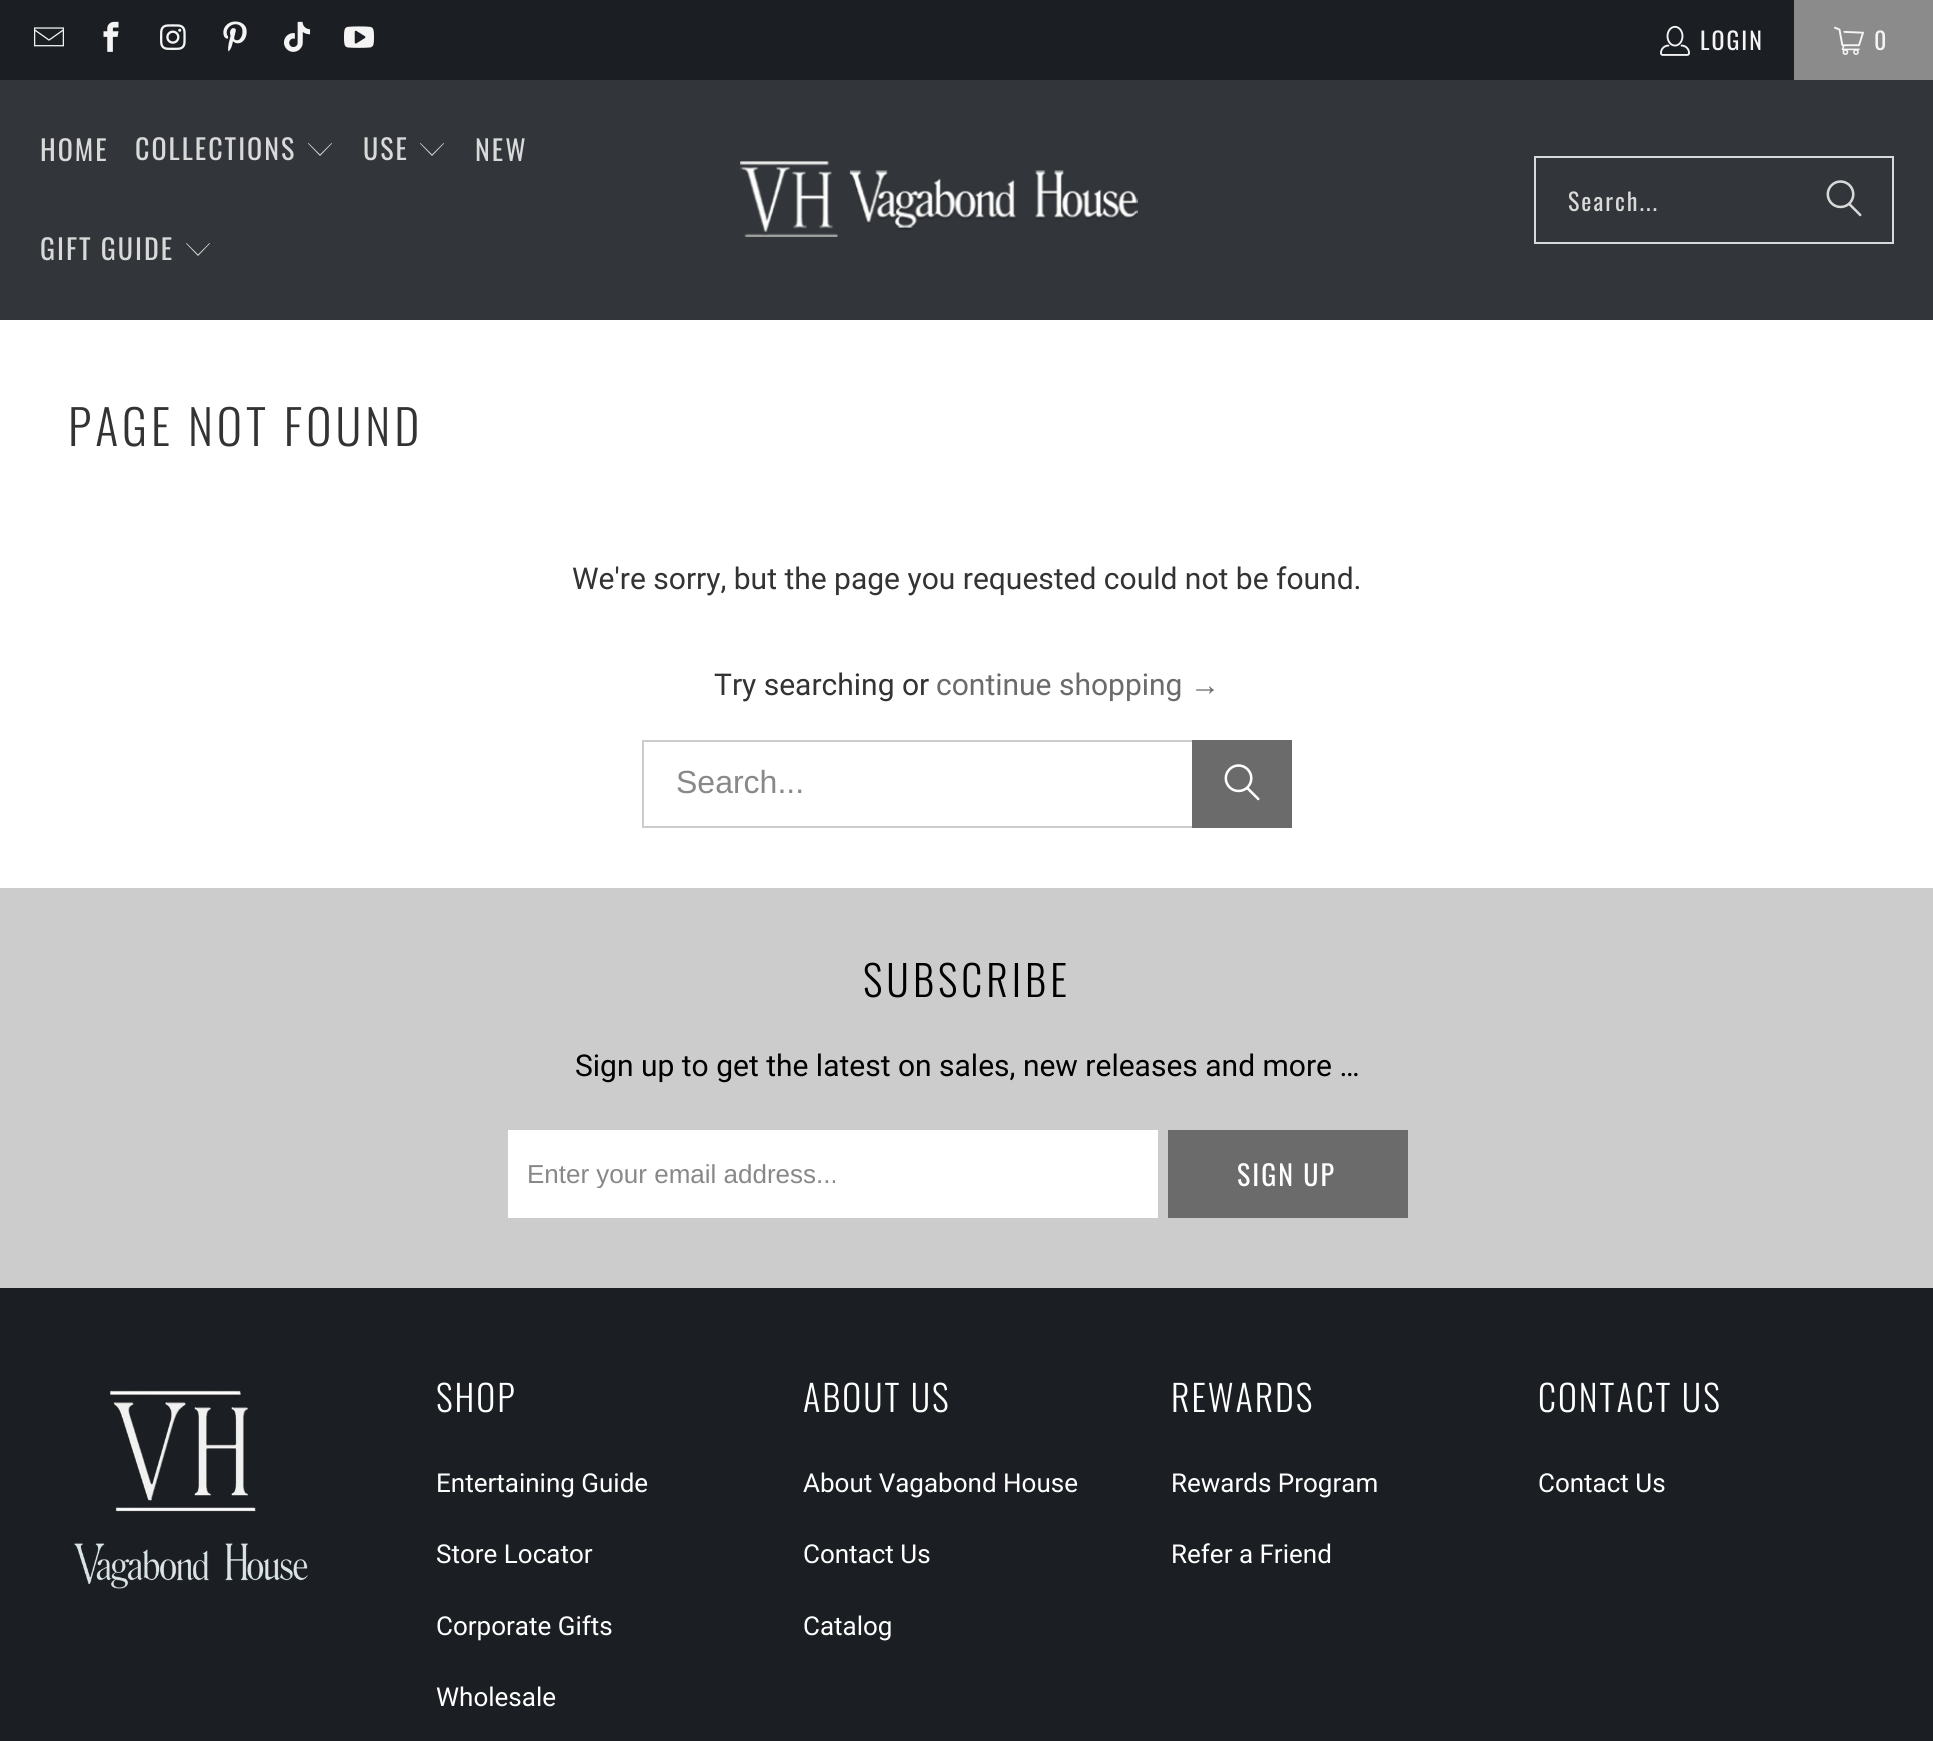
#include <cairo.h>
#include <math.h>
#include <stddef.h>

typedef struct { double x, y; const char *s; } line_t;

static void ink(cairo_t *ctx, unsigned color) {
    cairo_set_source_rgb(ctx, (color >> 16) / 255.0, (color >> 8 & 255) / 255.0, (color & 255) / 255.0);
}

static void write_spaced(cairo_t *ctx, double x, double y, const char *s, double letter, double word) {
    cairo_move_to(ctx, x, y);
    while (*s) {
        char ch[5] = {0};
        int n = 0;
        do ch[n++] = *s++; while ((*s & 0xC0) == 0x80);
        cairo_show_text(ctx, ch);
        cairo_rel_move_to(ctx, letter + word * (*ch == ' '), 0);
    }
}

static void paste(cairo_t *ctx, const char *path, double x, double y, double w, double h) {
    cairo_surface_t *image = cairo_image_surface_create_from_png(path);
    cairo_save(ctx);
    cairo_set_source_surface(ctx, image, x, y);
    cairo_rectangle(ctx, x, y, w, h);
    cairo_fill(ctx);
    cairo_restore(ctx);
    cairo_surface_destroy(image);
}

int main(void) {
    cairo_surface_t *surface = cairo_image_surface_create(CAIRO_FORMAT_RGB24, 1933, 1741);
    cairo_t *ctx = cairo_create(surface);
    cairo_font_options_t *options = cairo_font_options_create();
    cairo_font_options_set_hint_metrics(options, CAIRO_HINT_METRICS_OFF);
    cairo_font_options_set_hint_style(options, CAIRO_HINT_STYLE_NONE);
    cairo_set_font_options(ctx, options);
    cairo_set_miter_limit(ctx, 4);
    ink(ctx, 0xFFFFFF);
    cairo_paint(ctx);
    ink(ctx, 0x1B1F23);
    cairo_rectangle(ctx, 0, 0, 1794, 80);
    cairo_fill(ctx);
    paste(ctx, "media/1.png", 34, 27, 30, 20);
    paste(ctx, "media/2.png", 103, 21, 16, 31);
    paste(ctx, "media/3.png", 160, 24, 26, 26);
    paste(ctx, "media/4.png", 223, 21, 24, 31);
    paste(ctx, "media/5.png", 284, 21, 27, 31);
    paste(ctx, "media/6.png", 344, 26, 30, 22);
    paste(ctx, "media/7.png", 1660, 25, 30, 31);
    cairo_select_font_face(ctx, "Oswald", CAIRO_FONT_SLANT_NORMAL, CAIRO_FONT_WEIGHT_NORMAL);
    cairo_set_font_size(ctx, 24);
    ink(ctx, 0xF4F4F4);
    write_spaced(ctx, 1700, 50, "LOGIN", 2, 0);
    ink(ctx, 0x8C8B8B);
    cairo_rectangle(ctx, 1794, 0, 139, 80);
    cairo_fill(ctx);
    paste(ctx, "media/8.png", 1834, 26, 30, 29);
    ink(ctx, 0xF4F4F4);
    write_spaced(ctx, 1874, 50, "0", 2, 0);
    ink(ctx, 0x323539);
    cairo_rectangle(ctx, 0, 80, 1933, 240);
    cairo_fill(ctx);
    cairo_set_font_size(ctx, 28);
    ink(ctx, 0xD9D9D9);
    write_spaced(ctx, 40, 161, "HOME", 2, 0);
    write_spaced(ctx, 135, 160, "COLLECTIONS", 2, 0);
    cairo_new_path(ctx);
    cairo_move_to(ctx, 320, 156);
    cairo_line_to(ctx, 308, 143.5);
    cairo_line_to(ctx, 308.5, 143);
    cairo_line_to(ctx, 320, 154.5);
    cairo_line_to(ctx, 331.5, 143);
    cairo_line_to(ctx, 332, 143.5);
    cairo_close_path(ctx);
    cairo_fill(ctx);
    write_spaced(ctx, 363, 160, "USE", 2, 0);
    cairo_new_path(ctx);
    cairo_move_to(ctx, 432, 156);
    cairo_line_to(ctx, 420, 143.5);
    cairo_line_to(ctx, 420.5, 143);
    cairo_line_to(ctx, 432, 154.5);
    cairo_line_to(ctx, 443.5, 143);
    cairo_line_to(ctx, 444, 143.5);
    cairo_close_path(ctx);
    cairo_fill(ctx);
    write_spaced(ctx, 475, 161, "NEW", 2, 0);
    write_spaced(ctx, 40, 260, "GIFT GUIDE", 2, 0);
    cairo_new_path(ctx);
    cairo_move_to(ctx, 198, 256);
    cairo_line_to(ctx, 186, 243.5);
    cairo_line_to(ctx, 186.5, 243);
    cairo_line_to(ctx, 198, 254.5);
    cairo_line_to(ctx, 209.5, 243);
    cairo_line_to(ctx, 210, 243.5);
    cairo_close_path(ctx);
    cairo_fill(ctx);
    paste(ctx, "media/9.png", 740, 161, 398, 76);
    cairo_rectangle(ctx, 1535, 157, 358, 86);
    cairo_stroke(ctx);
    cairo_set_font_size(ctx, 24);
    write_spaced(ctx, 1568, 211, "Search...", 2, 0);
    paste(ctx, "media/10.png", 1826, 180, 36, 37);
    cairo_select_font_face(ctx, "Oswald Light", CAIRO_FONT_SLANT_NORMAL, CAIRO_FONT_WEIGHT_NORMAL);
    cairo_set_font_size(ctx, 48);
    ink(ctx, 0x333333);
    write_spaced(ctx, 68, 446, "PAGE NOT FOUND", 4, 0);
    cairo_select_font_face(ctx, "Roboto", CAIRO_FONT_SLANT_NORMAL, CAIRO_FONT_WEIGHT_NORMAL);
    cairo_set_font_size(ctx, 30);
    cairo_move_to(ctx, 572, 589);
    cairo_show_text(ctx, "We're sorry, but the page you requested could not be found.");
    cairo_move_to(ctx, 714, 695);
    cairo_show_text(ctx, "Try searching or");
    ink(ctx, 0x6B6B6B);
    cairo_move_to(ctx, 936, 695);
    cairo_show_text(ctx, "continue shopping");
    cairo_select_font_face(ctx, "Liberation Sans", CAIRO_FONT_SLANT_NORMAL, CAIRO_FONT_WEIGHT_NORMAL);
    cairo_move_to(ctx, 1190, 695);
    cairo_show_text(ctx, "→");
    cairo_rectangle(ctx, 643, 741, 648, 86);
    ink(ctx, 0xCCCCCC);
    cairo_stroke(ctx);
    cairo_set_font_size(ctx, 32);
    ink(ctx, 0x888888);
    cairo_move_to(ctx, 676, 793);
    cairo_show_text(ctx, "Search...");
    ink(ctx, 0x6B6B6B);
    cairo_rectangle(ctx, 1192, 740, 100, 88);
    cairo_fill(ctx);
    paste(ctx, "media/11.png", 1224, 764, 36, 37);
    ink(ctx, 0xCCCCCC);
    cairo_rectangle(ctx, 0, 888, 1933, 400);
    cairo_fill(ctx);
    cairo_select_font_face(ctx, "Oswald Light", CAIRO_FONT_SLANT_NORMAL, CAIRO_FONT_WEIGHT_NORMAL);
    cairo_set_font_size(ctx, 42);
    ink(ctx, 0x000000);
    write_spaced(ctx, 863, 997, "SUBSCRIBE", 4, 0);
    cairo_select_font_face(ctx, "Roboto", CAIRO_FONT_SLANT_NORMAL, CAIRO_FONT_WEIGHT_NORMAL);
    cairo_set_font_size(ctx, 30);
    cairo_move_to(ctx, 575, 1076);
    cairo_show_text(ctx, "Sign up to get the latest on sales, new releases and more …");
    ink(ctx, 0xFFFFFF);
    cairo_rectangle(ctx, 508, 1130, 650, 88);
    cairo_fill(ctx);
    cairo_save(ctx);
    cairo_rectangle(ctx, 528, 1158, 610, 30);
    cairo_clip(ctx);
    cairo_select_font_face(ctx, "Liberation Sans", CAIRO_FONT_SLANT_NORMAL, CAIRO_FONT_WEIGHT_NORMAL);
    cairo_set_font_size(ctx, 26);
    ink(ctx, 0x888888);
    cairo_move_to(ctx, 527, 1183);
    cairo_show_text(ctx, "Enter your email address...");
    cairo_restore(ctx);
    ink(ctx, 0x6B6B6B);
    cairo_rectangle(ctx, 1168, 1130, 240, 88);
    cairo_fill(ctx);
    cairo_select_font_face(ctx, "Oswald", CAIRO_FONT_SLANT_NORMAL, CAIRO_FONT_WEIGHT_NORMAL);
    cairo_set_font_size(ctx, 28);
    ink(ctx, 0xFFFFFF);
    write_spaced(ctx, 1237, 1186, "SIGN UP", 2, 0);
    ink(ctx, 0x1B1F23);
    cairo_rectangle(ctx, 0, 1288, 1933, 453);
    cairo_fill(ctx);
    paste(ctx, "media/12.png", 74, 1390, 234, 199);
    cairo_select_font_face(ctx, "Oswald Light", CAIRO_FONT_SLANT_NORMAL, CAIRO_FONT_WEIGHT_NORMAL);
    cairo_set_font_size(ctx, 36);
    ink(ctx, 0xFFFFFF);
    write_spaced(ctx, 436, 1412, "SHOP", 2, 0);
    cairo_select_font_face(ctx, "Roboto", CAIRO_FONT_SLANT_NORMAL, CAIRO_FONT_WEIGHT_NORMAL);
    cairo_set_font_size(ctx, 26);
    {
        static const line_t items[] = {
            {436, 1492, "Entertaining Guide"},
            {436, 1563, "Store Locator"},
            {436, 1635, "Corporate Gifts"},
            {436, 1706, "Wholesale"},
        };
        for (size_t i = 0; i < sizeof items / sizeof *items; i++) {
            cairo_move_to(ctx, items[i].x, items[i].y);
            cairo_show_text(ctx, items[i].s);
        }
    }
    cairo_select_font_face(ctx, "Oswald Light", CAIRO_FONT_SLANT_NORMAL, CAIRO_FONT_WEIGHT_NORMAL);
    cairo_set_font_size(ctx, 36);
    write_spaced(ctx, 803, 1412, "ABOUT US", 2, 0);
    cairo_select_font_face(ctx, "Roboto", CAIRO_FONT_SLANT_NORMAL, CAIRO_FONT_WEIGHT_NORMAL);
    cairo_set_font_size(ctx, 26);
    {
        static const line_t items[] = {
            {803, 1492, "About Vagabond House"},
            {803, 1563, "Contact Us"},
            {803, 1635, "Catalog"},
        };
        for (size_t i = 0; i < sizeof items / sizeof *items; i++) {
            cairo_move_to(ctx, items[i].x, items[i].y);
            cairo_show_text(ctx, items[i].s);
        }
    }
    cairo_select_font_face(ctx, "Oswald Light", CAIRO_FONT_SLANT_NORMAL, CAIRO_FONT_WEIGHT_NORMAL);
    cairo_set_font_size(ctx, 36);
    write_spaced(ctx, 1171, 1412, "REWARDS", 2, 0);
    cairo_select_font_face(ctx, "Roboto", CAIRO_FONT_SLANT_NORMAL, CAIRO_FONT_WEIGHT_NORMAL);
    cairo_set_font_size(ctx, 26);
    cairo_move_to(ctx, 1171, 1492);
    cairo_show_text(ctx, "Rewards Program");
    cairo_move_to(ctx, 1171, 1563);
    cairo_show_text(ctx, "Refer a Friend");
    cairo_select_font_face(ctx, "Oswald Light", CAIRO_FONT_SLANT_NORMAL, CAIRO_FONT_WEIGHT_NORMAL);
    cairo_set_font_size(ctx, 36);
    write_spaced(ctx, 1538, 1412, "CONTACT US", 2, 0);
    cairo_select_font_face(ctx, "Roboto", CAIRO_FONT_SLANT_NORMAL, CAIRO_FONT_WEIGHT_NORMAL);
    cairo_set_font_size(ctx, 26);
    cairo_move_to(ctx, 1538, 1492);
    cairo_show_text(ctx, "Contact Us");
    cairo_surface_write_to_png(surface, "image.png");
    cairo_font_options_destroy(options);
    cairo_destroy(ctx);
    cairo_surface_destroy(surface);
    return 0;
}
